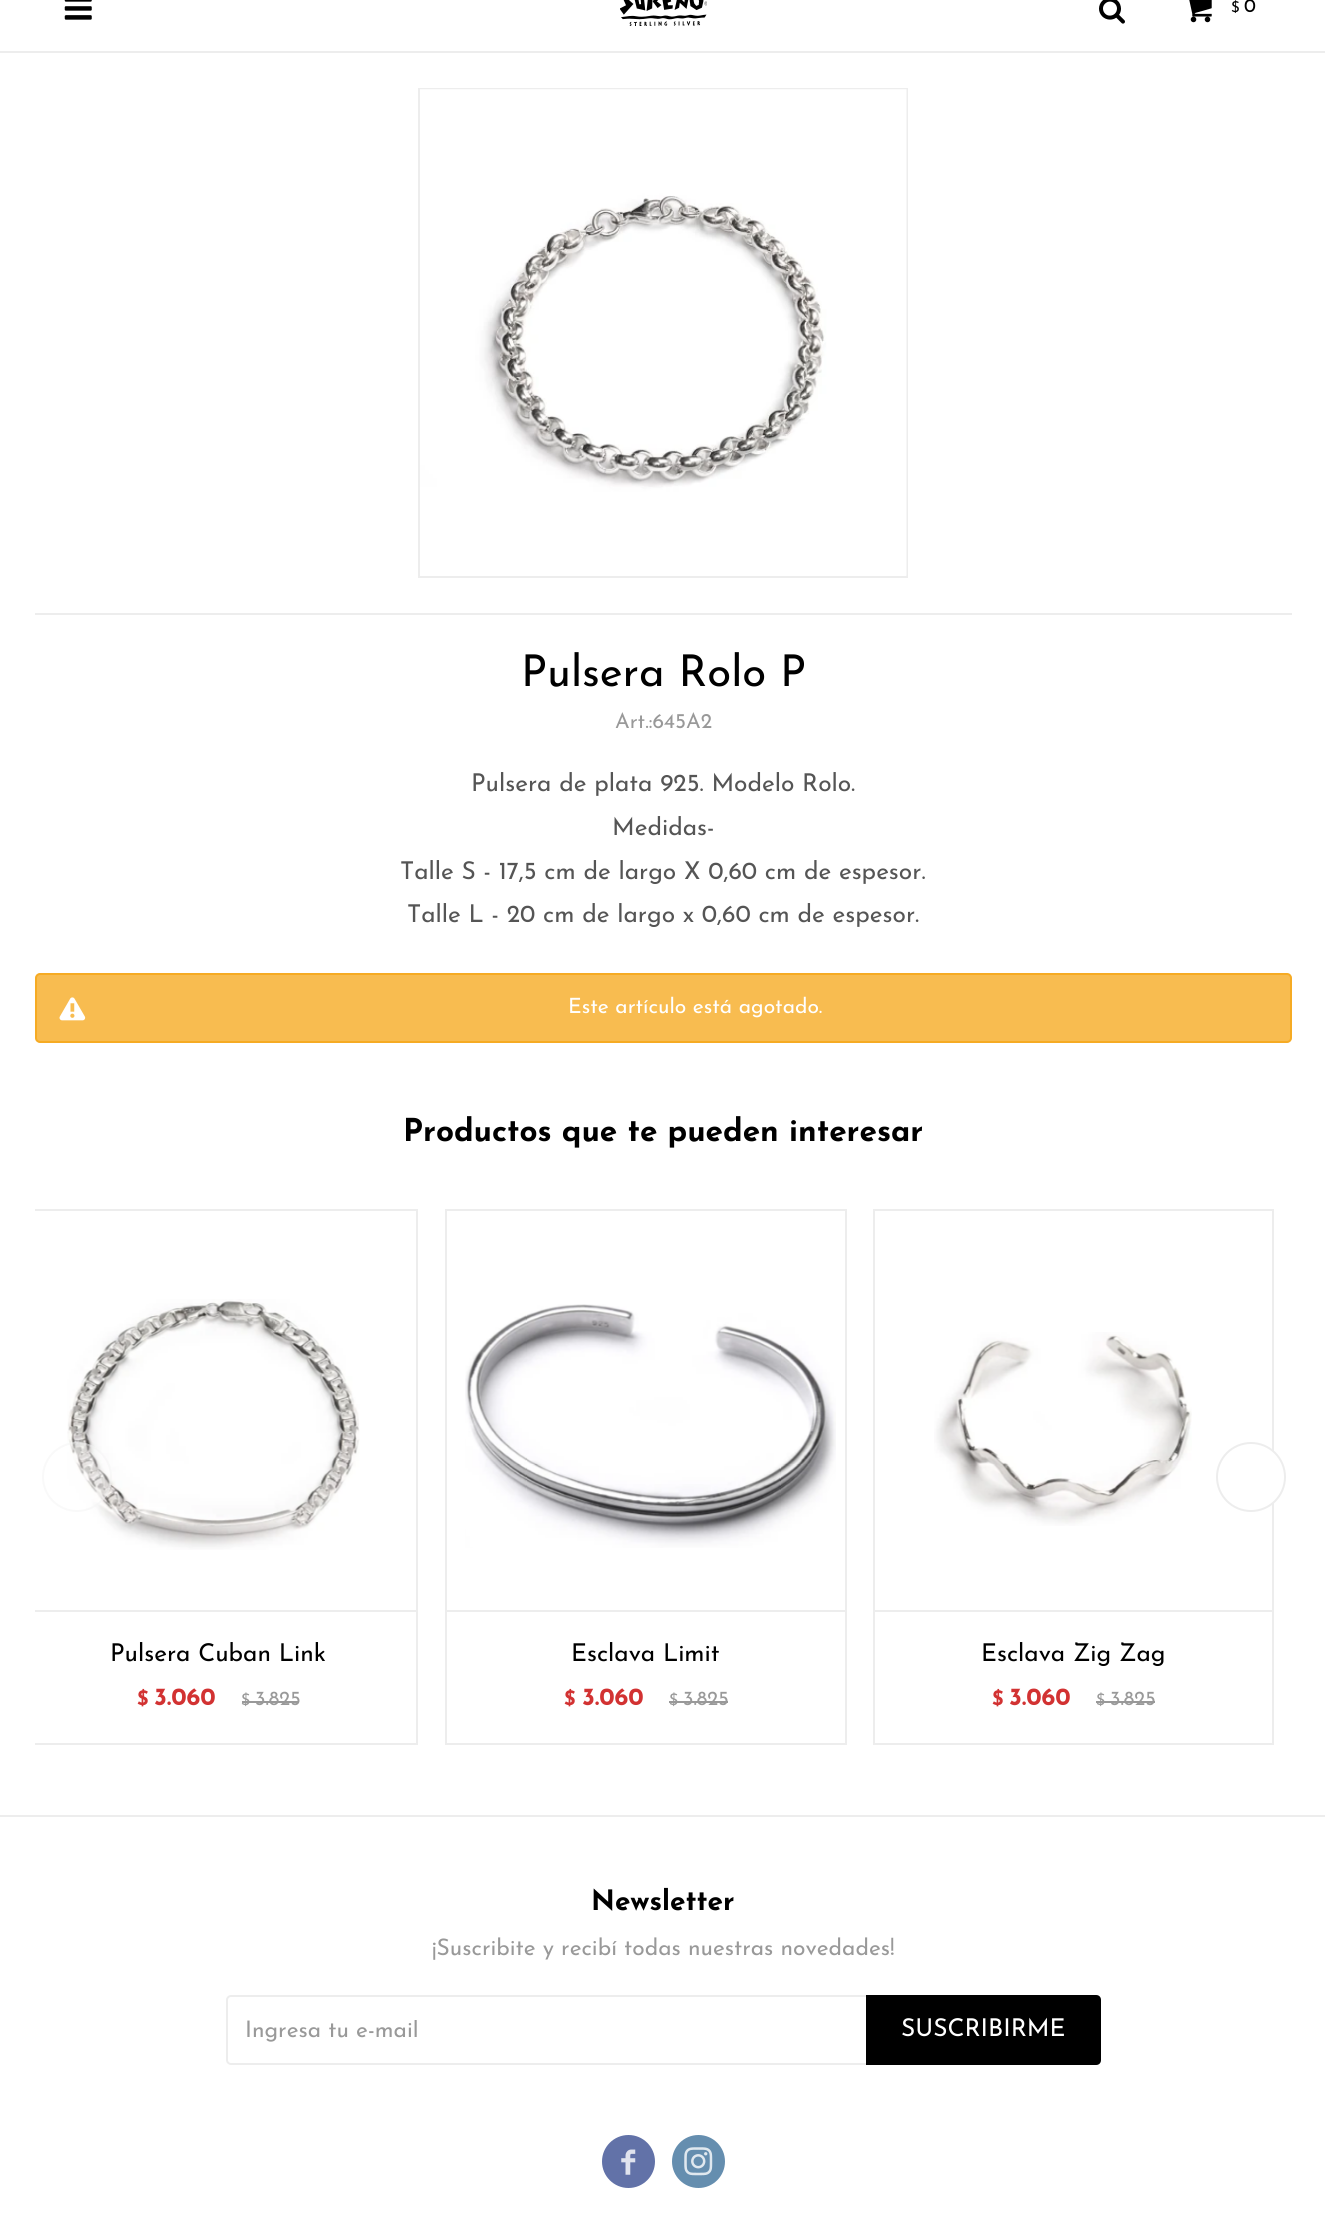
#include <cairo.h>
#include <math.h>
#include <stddef.h>

typedef struct { double x, y; const char *s; } line_t;

static void ink(cairo_t *ctx, unsigned color) {
    cairo_set_source_rgb(ctx, (color >> 16) / 255.0, (color >> 8 & 255) / 255.0, (color & 255) / 255.0);
}

static void round_path(cairo_t *ctx, double x, double y, double w, double h, double r) {
    cairo_new_sub_path(ctx);
    cairo_arc(ctx, x + w - r, y + h - r, r, 0, M_PI / 2);
    cairo_arc(ctx, x + r, y + h - r, r, M_PI / 2, M_PI);
    cairo_arc(ctx, x + r, y + r, r, M_PI, 1.5 * M_PI);
    cairo_arc(ctx, x + w - r, y + r, r, 1.5 * M_PI, 2 * M_PI);
    cairo_close_path(ctx);
}

static void paste(cairo_t *ctx, const char *path, double x, double y, double w, double h) {
    cairo_surface_t *image = cairo_image_surface_create_from_png(path);
    cairo_save(ctx);
    cairo_set_source_surface(ctx, image, x, y);
    cairo_rectangle(ctx, x, y, w, h);
    cairo_fill(ctx);
    cairo_restore(ctx);
    cairo_surface_destroy(image);
}

int main(void) {
    cairo_surface_t *surface = cairo_image_surface_create(CAIRO_FORMAT_RGB24, 1325, 2213);
    cairo_t *ctx = cairo_create(surface);
    cairo_font_options_t *options = cairo_font_options_create();
    cairo_font_options_set_hint_metrics(options, CAIRO_HINT_METRICS_OFF);
    cairo_font_options_set_hint_style(options, CAIRO_HINT_STYLE_NONE);
    cairo_set_font_options(ctx, options);
    cairo_set_miter_limit(ctx, 4);
    ink(ctx, 0xFFFFFF);
    cairo_paint(ctx);
    paste(ctx, "media/1.png", 64, 0, 28, 20);
    paste(ctx, "media/2.png", 620, 0, 87, 26);
    paste(ctx, "media/3.png", 1099, 0, 26, 24);
    paste(ctx, "media/4.png", 1189, 0, 23, 23);
    cairo_select_font_face(ctx, "Josefin Sans", CAIRO_FONT_SLANT_NORMAL, CAIRO_FONT_WEIGHT_NORMAL);
    cairo_set_font_size(ctx, 15);
    ink(ctx, 0x000000);
    cairo_move_to(ctx, 1231, 12);
    cairo_show_text(ctx, "$");
    cairo_set_font_size(ctx, 19);
    cairo_move_to(ctx, 1244, 12);
    cairo_show_text(ctx, "0");
    ink(ctx, 0xEDEDED);
    cairo_rectangle(ctx, 0, 51, 1325, 2);
    cairo_fill(ctx);
    cairo_rectangle(ctx, 419, 89, 488, 488);
    cairo_stroke(ctx);
    paste(ctx, "media/5.png", 420, 89, 487, 487);
    cairo_rectangle(ctx, 35, 613, 1257, 2);
    cairo_fill(ctx);
    cairo_set_font_size(ctx, 43.75);
    ink(ctx, 0x000000);
    cairo_move_to(ctx, 521, 686);
    cairo_show_text(ctx, "Pulsera Rolo P");
    cairo_set_font_size(ctx, 21);
    ink(ctx, 0x999999);
    cairo_move_to(ctx, 615, 728);
    cairo_show_text(ctx, "Art.:645A2");
    cairo_set_font_size(ctx, 24.5);
    ink(ctx, 0x555555);
    {
        static const line_t items[] = {
            {471, 791, "Pulsera de plata 925. Modelo Rolo."},
            {612, 835, "Medidas-"},
            {400, 879, "Talle S - 17,5 cm de largo X 0,60 cm de espesor."},
            {407, 922, "Talle L - 20 cm de largo x 0,60 cm de espesor."},
        };
        for (size_t i = 0; i < sizeof items / sizeof *items; i++) {
            cairo_move_to(ctx, items[i].x, items[i].y);
            cairo_show_text(ctx, items[i].s);
        }
    }
    ink(ctx, 0xF8BC50);
    round_path(ctx, 36, 974, 1255, 68, 4);
    cairo_fill_preserve(ctx);
    ink(ctx, 0xF6AB24);
    cairo_stroke(ctx);
    paste(ctx, "media/6.png", 59, 997, 27, 24);
    cairo_set_font_size(ctx, 21);
    ink(ctx, 0xFFFFFF);
    cairo_move_to(ctx, 568, 1013);
    cairo_show_text(ctx, "Este artículo está agotado.");
    cairo_select_font_face(ctx, "Josefin Sans", CAIRO_FONT_SLANT_NORMAL, CAIRO_FONT_WEIGHT_BOLD);
    cairo_set_font_size(ctx, 31.5);
    ink(ctx, 0x000000);
    cairo_move_to(ctx, 403, 1141);
    cairo_show_text(ctx, "Productos que te pueden interesar");
    paste(ctx, "media/7.png", 67, 1299, 293, 251);
    ink(ctx, 0xEDEDED);
    cairo_rectangle(ctx, 35, 1610, 383, 2);
    cairo_fill(ctx);
    ink(ctx, 0x999999);
    cairo_rectangle(ctx, 242, 1701, 57, 2);
    cairo_fill(ctx);
    cairo_save(ctx);
    cairo_rectangle(ctx, 35, 1209, 1257, 536);
    cairo_clip(ctx);
    cairo_rectangle(ctx, 19, 1210, 398, 534);
    ink(ctx, 0xEDEDED);
    cairo_stroke(ctx);
    cairo_restore(ctx);
    cairo_set_source_rgba(ctx, 1, 1, 1, 0.35);
    cairo_arc(ctx, 77, 1477, 35, 0, 2 * M_PI);
    cairo_fill(ctx);
    cairo_arc(ctx, 77, 1477, 34, 0, 2 * M_PI);
    cairo_set_source_rgba(ctx, 0.929, 0.929, 0.929, 0.35);
    cairo_stroke(ctx);
    paste(ctx, "media/9.png", 934, 1332, 258, 194);
    ink(ctx, 0xEDEDED);
    cairo_rectangle(ctx, 873, 1610, 401, 2);
    cairo_fill(ctx);
    ink(ctx, 0x999999);
    cairo_rectangle(ctx, 1096, 1701, 59, 2);
    cairo_fill(ctx);
    cairo_rectangle(ctx, 874, 1210, 399, 534);
    ink(ctx, 0xEDEDED);
    cairo_stroke(ctx);
    ink(ctx, 0xFFFFFF);
    cairo_arc(ctx, 1251, 1477, 34, 0, 2 * M_PI);
    cairo_fill_preserve(ctx);
    ink(ctx, 0xEDEDED);
    cairo_stroke(ctx);
    cairo_select_font_face(ctx, "Josefin Sans", CAIRO_FONT_SLANT_NORMAL, CAIRO_FONT_WEIGHT_NORMAL);
    cairo_set_font_size(ctx, 24.5);
    ink(ctx, 0x000000);
    cairo_move_to(ctx, 110, 1661);
    cairo_show_text(ctx, "Pulsera Cuban Link");
    cairo_select_font_face(ctx, "Josefin Sans", CAIRO_FONT_SLANT_NORMAL, CAIRO_FONT_WEIGHT_BOLD);
    cairo_set_font_size(ctx, 20);
    ink(ctx, 0xD23232);
    cairo_move_to(ctx, 137, 1705);
    cairo_show_text(ctx, "$");
    cairo_set_font_size(ctx, 24.5);
    cairo_move_to(ctx, 154, 1705);
    cairo_show_text(ctx, "3.060");
    cairo_select_font_face(ctx, "Josefin Sans", CAIRO_FONT_SLANT_NORMAL, CAIRO_FONT_WEIGHT_NORMAL);
    cairo_set_font_size(ctx, 16);
    ink(ctx, 0x999999);
    cairo_move_to(ctx, 241, 1705);
    cairo_show_text(ctx, "$");
    cairo_set_font_size(ctx, 20);
    cairo_move_to(ctx, 255, 1705);
    cairo_show_text(ctx, "3.825");
    paste(ctx, "media/8.png", 465, 1304, 371, 244);
    ink(ctx, 0xEDEDED);
    cairo_rectangle(ctx, 445, 1610, 402, 2);
    cairo_fill(ctx);
    ink(ctx, 0x999999);
    cairo_rectangle(ctx, 669, 1701, 59, 2);
    cairo_fill(ctx);
    cairo_rectangle(ctx, 446, 1210, 400, 534);
    ink(ctx, 0xEDEDED);
    cairo_stroke(ctx);
    cairo_set_font_size(ctx, 24.5);
    ink(ctx, 0x000000);
    cairo_move_to(ctx, 571, 1661);
    cairo_show_text(ctx, "Esclava Limit");
    cairo_select_font_face(ctx, "Josefin Sans", CAIRO_FONT_SLANT_NORMAL, CAIRO_FONT_WEIGHT_BOLD);
    cairo_set_font_size(ctx, 20);
    ink(ctx, 0xD23232);
    cairo_move_to(ctx, 564, 1705);
    cairo_show_text(ctx, "$");
    cairo_set_font_size(ctx, 24.5);
    cairo_move_to(ctx, 582, 1705);
    cairo_show_text(ctx, "3.060");
    cairo_select_font_face(ctx, "Josefin Sans", CAIRO_FONT_SLANT_NORMAL, CAIRO_FONT_WEIGHT_NORMAL);
    cairo_set_font_size(ctx, 16);
    ink(ctx, 0x999999);
    cairo_move_to(ctx, 669, 1705);
    cairo_show_text(ctx, "$");
    cairo_set_font_size(ctx, 20);
    cairo_move_to(ctx, 683, 1705);
    cairo_show_text(ctx, "3.825");
    cairo_set_font_size(ctx, 24.5);
    ink(ctx, 0x000000);
    cairo_move_to(ctx, 981, 1661);
    cairo_show_text(ctx, "Esclava Zig Zag");
    cairo_select_font_face(ctx, "Josefin Sans", CAIRO_FONT_SLANT_NORMAL, CAIRO_FONT_WEIGHT_BOLD);
    cairo_set_font_size(ctx, 20);
    ink(ctx, 0xD23232);
    cairo_move_to(ctx, 992, 1705);
    cairo_show_text(ctx, "$");
    cairo_set_font_size(ctx, 24.5);
    cairo_move_to(ctx, 1009, 1705);
    cairo_show_text(ctx, "3.060");
    cairo_select_font_face(ctx, "Josefin Sans", CAIRO_FONT_SLANT_NORMAL, CAIRO_FONT_WEIGHT_NORMAL);
    cairo_set_font_size(ctx, 16);
    ink(ctx, 0x999999);
    cairo_move_to(ctx, 1096, 1705);
    cairo_show_text(ctx, "$");
    cairo_set_font_size(ctx, 20);
    cairo_move_to(ctx, 1110, 1705);
    cairo_show_text(ctx, "3.825");
    ink(ctx, 0xEDEDED);
    cairo_rectangle(ctx, 0, 1815, 1325, 2);
    cairo_fill(ctx);
    cairo_select_font_face(ctx, "Josefin Sans", CAIRO_FONT_SLANT_NORMAL, CAIRO_FONT_WEIGHT_BOLD);
    cairo_set_font_size(ctx, 28);
    ink(ctx, 0x000000);
    cairo_move_to(ctx, 591, 1910);
    cairo_show_text(ctx, "Newsletter");
    cairo_select_font_face(ctx, "Josefin Sans", CAIRO_FONT_SLANT_NORMAL, CAIRO_FONT_WEIGHT_NORMAL);
    cairo_set_font_size(ctx, 22.75);
    ink(ctx, 0x999999);
    cairo_move_to(ctx, 432, 1955);
    cairo_show_text(ctx, "¡Suscribite y recibí todas nuestras novedades!");
    round_path(ctx, 227, 1996, 873, 68, 4);
    ink(ctx, 0xEDEDED);
    cairo_stroke(ctx);
    cairo_save(ctx);
    cairo_rectangle(ctx, 245, 2020, 749, 22);
    cairo_clip(ctx);
    ink(ctx, 0x999999);
    cairo_move_to(ctx, 245, 2037);
    cairo_show_text(ctx, "Ingresa tu e-mail");
    cairo_restore(ctx);
    ink(ctx, 0x000000);
    cairo_new_path(ctx);
    cairo_move_to(ctx, 866, 1995);
    cairo_line_to(ctx, 1096, 1995);
    cairo_curve_to(ctx, 1099, 1995, 1101, 1997, 1101, 2000);
    cairo_line_to(ctx, 1101, 2060);
    cairo_curve_to(ctx, 1101, 2063, 1099, 2065, 1096, 2065);
    cairo_line_to(ctx, 866, 2065);
    cairo_close_path(ctx);
    cairo_fill(ctx);
    cairo_set_font_size(ctx, 24.5);
    ink(ctx, 0xFFFFFF);
    cairo_move_to(ctx, 901, 2036);
    cairo_show_text(ctx, "SUSCRIBIRME");
    ink(ctx, 0x6272A8);
    cairo_new_path(ctx);
    cairo_arc(ctx, 628.5, 2161.5, 26.5, 0, 2 * M_PI);
    cairo_fill(ctx);
    paste(ctx, "media/10.png", 621, 2149, 15, 26);
    ink(ctx, 0x658EAF);
    cairo_arc(ctx, 698.5, 2161.5, 26.5, 0, 2 * M_PI);
    cairo_fill(ctx);
    paste(ctx, "media/11.png", 684, 2147, 29, 29);
    cairo_surface_write_to_png(surface, "image.png");
    cairo_font_options_destroy(options);
    cairo_destroy(ctx);
    cairo_surface_destroy(surface);
    return 0;
}
